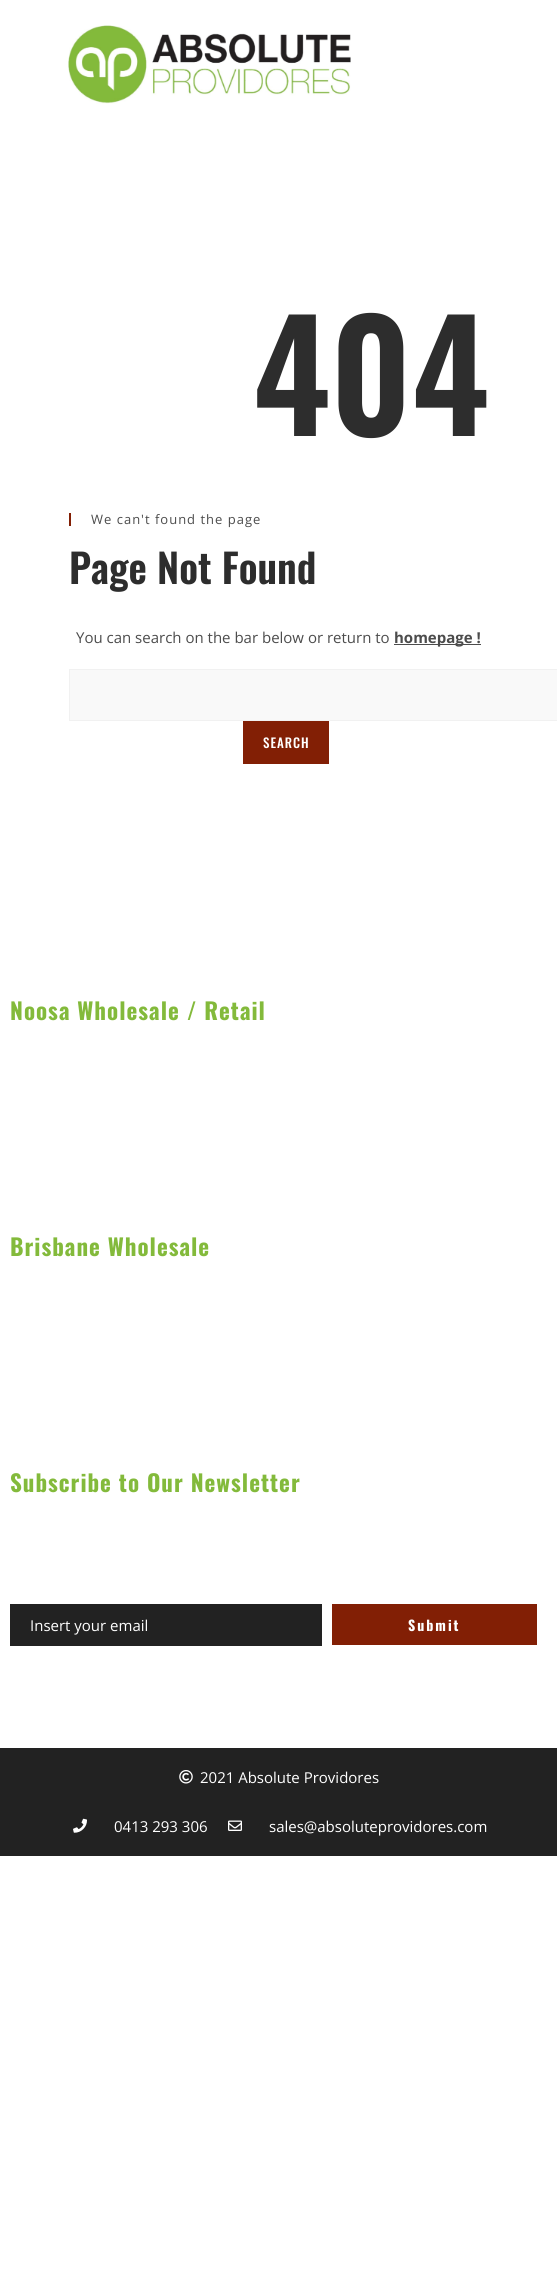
#include <cairo.h>
#include <math.h>
#include <stddef.h>

typedef struct { double x, y; const char *s; } line_t;

static void ink(cairo_t *ctx, unsigned color) {
    cairo_set_source_rgb(ctx, (color >> 16) / 255.0, (color >> 8 & 255) / 255.0, (color & 255) / 255.0);
}

static void write_spaced(cairo_t *ctx, double x, double y, const char *s, double letter, double word) {
    cairo_move_to(ctx, x, y);
    while (*s) {
        char ch[5] = {0};
        int n = 0;
        do ch[n++] = *s++; while ((*s & 0xC0) == 0x80);
        cairo_show_text(ctx, ch);
        cairo_rel_move_to(ctx, letter + word * (*ch == ' '), 0);
    }
}

static void paste(cairo_t *ctx, const char *path, double x, double y, double w, double h) {
    cairo_surface_t *image = cairo_image_surface_create_from_png(path);
    cairo_save(ctx);
    cairo_set_source_surface(ctx, image, x, y);
    cairo_rectangle(ctx, x, y, w, h);
    cairo_fill(ctx);
    cairo_restore(ctx);
    cairo_surface_destroy(image);
}

int main(void) {
    cairo_surface_t *surface = cairo_image_surface_create(CAIRO_FORMAT_RGB24, 557, 2293);
    cairo_t *ctx = cairo_create(surface);
    cairo_font_options_t *options = cairo_font_options_create();
    cairo_font_options_set_hint_metrics(options, CAIRO_HINT_METRICS_OFF);
    cairo_font_options_set_hint_style(options, CAIRO_HINT_STYLE_NONE);
    cairo_set_font_options(ctx, options);
    cairo_set_miter_limit(ctx, 4);
    ink(ctx, 0xFFFFFF);
    cairo_paint(ctx);
    paste(ctx, "media/1.png", 68, 25, 283, 79);
    cairo_select_font_face(ctx, "Oswald SemiBold", CAIRO_FONT_SLANT_NORMAL, CAIRO_FONT_WEIGHT_NORMAL);
    cairo_set_font_size(ctx, 150);
    ink(ctx, 0x2D2D2D);
    cairo_move_to(ctx, 253, 436);
    cairo_show_text(ctx, "404");
    ink(ctx, 0x821F05);
    cairo_rectangle(ctx, 69, 513, 2, 13);
    cairo_fill(ctx);
    cairo_select_font_face(ctx, "Open Sans", CAIRO_FONT_SLANT_NORMAL, CAIRO_FONT_WEIGHT_NORMAL);
    cairo_set_font_size(ctx, 13);
    ink(ctx, 0x4C4C4C);
    write_spaced(ctx, 91, 524, "We can't found the page", 1, 0);
    cairo_select_font_face(ctx, "Oswald SemiBold", CAIRO_FONT_SLANT_NORMAL, CAIRO_FONT_WEIGHT_NORMAL);
    cairo_set_font_size(ctx, 40);
    ink(ctx, 0x2D2D2D);
    cairo_move_to(ctx, 69, 584);
    cairo_show_text(ctx, "Page Not Found");
    cairo_select_font_face(ctx, "Open Sans", CAIRO_FONT_SLANT_NORMAL, CAIRO_FONT_WEIGHT_NORMAL);
    cairo_set_font_size(ctx, 15);
    ink(ctx, 0x4C4C4C);
    cairo_move_to(ctx, 76, 643);
    cairo_show_text(ctx, "You can search on the bar below or return to");
    cairo_rectangle(ctx, 394, 644, 87, 1);
    cairo_fill(ctx);
    cairo_select_font_face(ctx, "Open Sans", CAIRO_FONT_SLANT_NORMAL, CAIRO_FONT_WEIGHT_BOLD);
    cairo_move_to(ctx, 394, 643);
    cairo_show_text(ctx, "homepage !");
    ink(ctx, 0xF9F9F9);
    cairo_rectangle(ctx, 69.5, 669.5, 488, 51);
    cairo_fill_preserve(ctx);
    ink(ctx, 0xF1F1F1);
    cairo_set_line_width(ctx, 1);
    cairo_stroke(ctx);
    ink(ctx, 0x821F05);
    cairo_rectangle(ctx, 243, 721, 86, 43);
    cairo_fill(ctx);
    cairo_select_font_face(ctx, "Oswald Medium", CAIRO_FONT_SLANT_NORMAL, CAIRO_FONT_WEIGHT_NORMAL);
    cairo_set_font_size(ctx, 13);
    ink(ctx, 0xFFFFFF);
    write_spaced(ctx, 263, 748, "SEARCH", 1, 0);
    cairo_select_font_face(ctx, "Oswald", CAIRO_FONT_SLANT_NORMAL, CAIRO_FONT_WEIGHT_BOLD);
    cairo_set_font_size(ctx, 23);
    ink(ctx, 0x83BA3B);
    {
        static const line_t items[] = {
            {10, 1020, "Noosa Wholesale / Retail"},
            {10, 1256, "Brisbane Wholesale"},
            {10, 1492, "Subscribe to Our Newsletter"},
        };
        for (size_t i = 0; i < sizeof items / sizeof *items; i++) {
            write_spaced(ctx, items[i].x, items[i].y, items[i].s, 1, 0);
        }
    }
    ink(ctx, 0x222222);
    cairo_rectangle(ctx, 10, 1604, 312, 42);
    cairo_fill(ctx);
    cairo_select_font_face(ctx, "Open Sans", CAIRO_FONT_SLANT_NORMAL, CAIRO_FONT_WEIGHT_NORMAL);
    cairo_set_font_size(ctx, 15);
    ink(ctx, 0xFFFFFF);
    cairo_move_to(ctx, 30, 1631);
    cairo_show_text(ctx, "Insert your email");
    ink(ctx, 0x821F05);
    cairo_rectangle(ctx, 332, 1604, 205, 41);
    cairo_fill(ctx);
    cairo_select_font_face(ctx, "Oswald", CAIRO_FONT_SLANT_NORMAL, CAIRO_FONT_WEIGHT_BOLD);
    cairo_set_font_size(ctx, 14);
    ink(ctx, 0xFFFFFF);
    write_spaced(ctx, 408, 1631, "Submit", 2, 0);
    ink(ctx, 0x222222);
    cairo_rectangle(ctx, 0, 1748, 557, 108);
    cairo_fill(ctx);
    paste(ctx, "media/2.png", 179, 1770, 14, 14);
    cairo_select_font_face(ctx, "Open Sans", CAIRO_FONT_SLANT_NORMAL, CAIRO_FONT_WEIGHT_NORMAL);
    cairo_set_font_size(ctx, 15);
    ink(ctx, 0xFFFFFF);
    cairo_move_to(ctx, 200, 1783);
    cairo_show_text(ctx, "2021 Absolute Providores");
    paste(ctx, "media/3.png", 73, 1818, 14, 15);
    cairo_move_to(ctx, 114, 1832);
    cairo_show_text(ctx, "0413 293 306");
    paste(ctx, "media/4.png", 228, 1820, 14, 11);
    cairo_move_to(ctx, 269, 1832);
    cairo_show_text(ctx, "sales@absoluteprovidores.com");
    cairo_surface_write_to_png(surface, "image.png");
    cairo_font_options_destroy(options);
    cairo_destroy(ctx);
    cairo_surface_destroy(surface);
    return 0;
}
